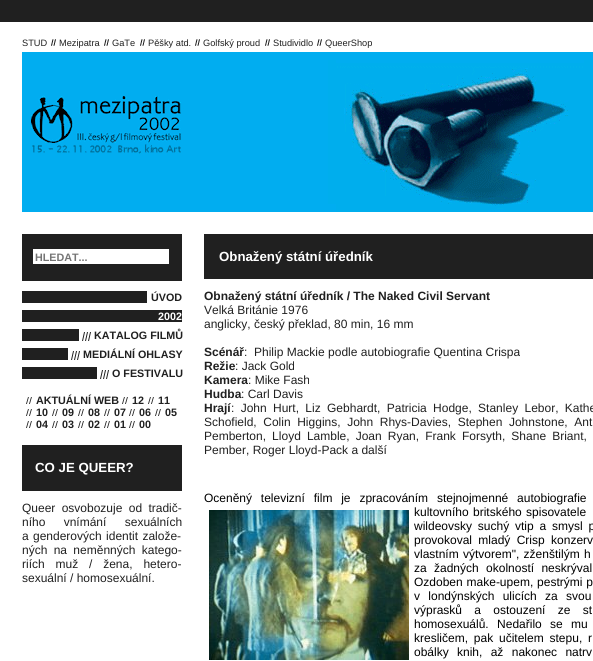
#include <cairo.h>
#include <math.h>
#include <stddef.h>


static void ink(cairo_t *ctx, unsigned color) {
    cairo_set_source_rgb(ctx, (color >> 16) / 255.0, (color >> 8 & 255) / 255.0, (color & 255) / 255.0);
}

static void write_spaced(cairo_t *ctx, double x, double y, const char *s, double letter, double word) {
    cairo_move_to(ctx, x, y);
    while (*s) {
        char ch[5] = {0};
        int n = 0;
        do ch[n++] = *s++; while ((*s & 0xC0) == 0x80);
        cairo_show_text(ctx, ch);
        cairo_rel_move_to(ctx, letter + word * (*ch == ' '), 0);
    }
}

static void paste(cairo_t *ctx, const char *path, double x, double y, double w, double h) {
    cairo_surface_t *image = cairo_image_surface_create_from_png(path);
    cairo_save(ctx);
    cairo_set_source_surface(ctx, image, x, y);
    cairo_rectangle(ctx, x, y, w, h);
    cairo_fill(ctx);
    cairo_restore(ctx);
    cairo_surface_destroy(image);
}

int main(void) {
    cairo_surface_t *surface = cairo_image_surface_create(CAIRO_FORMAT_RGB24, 593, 661);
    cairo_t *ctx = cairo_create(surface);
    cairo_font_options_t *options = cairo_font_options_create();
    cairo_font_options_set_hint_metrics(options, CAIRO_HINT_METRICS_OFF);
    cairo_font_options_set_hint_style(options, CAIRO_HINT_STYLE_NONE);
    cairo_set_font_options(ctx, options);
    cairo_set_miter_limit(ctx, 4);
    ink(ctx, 0x202020);
    cairo_paint(ctx);
    ink(ctx, 0xFFFFFF);
    cairo_rectangle(ctx, 0, 22, 593, 639);
    cairo_fill(ctx);
    cairo_select_font_face(ctx, "Liberation Sans", CAIRO_FONT_SLANT_NORMAL, CAIRO_FONT_WEIGHT_NORMAL);
    cairo_set_font_size(ctx, 9.25);
    ink(ctx, 0x202020);
    cairo_move_to(ctx, 22, 46);
    cairo_show_text(ctx, "STUD");
    paste(ctx, "media/1.png", 51, 39, 5, 7);
    cairo_move_to(ctx, 59, 46);
    cairo_show_text(ctx, "Mezipatra");
    paste(ctx, "media/1.png", 104, 39, 5, 7);
    cairo_move_to(ctx, 112, 46);
    cairo_show_text(ctx, "GaTe");
    paste(ctx, "media/1.png", 140, 39, 5, 7);
    cairo_move_to(ctx, 148, 46);
    cairo_show_text(ctx, "Pěšky atd.");
    paste(ctx, "media/1.png", 195, 39, 5, 7);
    cairo_move_to(ctx, 203, 46);
    cairo_show_text(ctx, "Golfský proud");
    paste(ctx, "media/1.png", 265, 39, 5, 7);
    cairo_move_to(ctx, 273, 46);
    cairo_show_text(ctx, "Studividlo");
    paste(ctx, "media/1.png", 317, 39, 5, 7);
    cairo_move_to(ctx, 325, 46);
    cairo_show_text(ctx, "QueerShop");
    paste(ctx, "media/2.png", 22, 52, 571, 160);
    cairo_rectangle(ctx, 22, 234, 160, 47);
    cairo_fill(ctx);
    ink(ctx, 0xFFFFFF);
    cairo_rectangle(ctx, 33, 249, 136, 15);
    cairo_fill(ctx);
    cairo_select_font_face(ctx, "Liberation Sans", CAIRO_FONT_SLANT_NORMAL, CAIRO_FONT_WEIGHT_BOLD);
    cairo_set_font_size(ctx, 10.75);
    ink(ctx, 0x757575);
    cairo_move_to(ctx, 35, 261);
    cairo_show_text(ctx, "HLEDAT...");
    ink(ctx, 0x202020);
    cairo_rectangle(ctx, 22, 291, 125, 12);
    cairo_fill(ctx);
    cairo_move_to(ctx, 151, 301);
    cairo_show_text(ctx, "ÚVOD");
    cairo_rectangle(ctx, 22, 310, 160, 12);
    cairo_fill(ctx);
    ink(ctx, 0xFFFFFF);
    cairo_move_to(ctx, 158, 320);
    cairo_show_text(ctx, "2002");
    ink(ctx, 0x202020);
    cairo_rectangle(ctx, 22, 329, 57, 12);
    cairo_fill(ctx);
    paste(ctx, "media/3.png", 82, 332, 9, 9);
    cairo_move_to(ctx, 94, 339);
    cairo_show_text(ctx, "KATALOG FILMŮ");
    cairo_rectangle(ctx, 22, 348, 46, 12);
    cairo_fill(ctx);
    paste(ctx, "media/3.png", 71, 351, 9, 9);
    cairo_move_to(ctx, 83, 358);
    cairo_show_text(ctx, "MEDIÁLNÍ OHLASY");
    cairo_rectangle(ctx, 22, 367, 75, 12);
    cairo_fill(ctx);
    paste(ctx, "media/3.png", 100, 370, 9, 9);
    cairo_move_to(ctx, 112, 377);
    cairo_show_text(ctx, "O FESTIVALU");
    paste(ctx, "media/4.png", 26, 397, 6, 7);
    cairo_move_to(ctx, 36, 404);
    cairo_show_text(ctx, "AKTUÁLNÍ WEB");
    paste(ctx, "media/4.png", 122, 397, 6, 7);
    cairo_move_to(ctx, 132, 404);
    cairo_show_text(ctx, "12");
    paste(ctx, "media/4.png", 148, 397, 6, 7);
    cairo_move_to(ctx, 158, 404);
    cairo_show_text(ctx, "11");
    paste(ctx, "media/4.png", 26, 409, 6, 7);
    cairo_move_to(ctx, 36, 416);
    cairo_show_text(ctx, "10");
    paste(ctx, "media/4.png", 52, 409, 6, 7);
    cairo_move_to(ctx, 62, 416);
    cairo_show_text(ctx, "09");
    paste(ctx, "media/4.png", 78, 409, 6, 7);
    cairo_move_to(ctx, 88, 416);
    cairo_show_text(ctx, "08");
    paste(ctx, "media/4.png", 104, 409, 6, 7);
    cairo_move_to(ctx, 114, 416);
    cairo_show_text(ctx, "07");
    paste(ctx, "media/4.png", 129, 409, 6, 7);
    cairo_move_to(ctx, 139, 416);
    cairo_show_text(ctx, "06");
    paste(ctx, "media/4.png", 155, 409, 6, 7);
    cairo_move_to(ctx, 165, 416);
    cairo_show_text(ctx, "05");
    paste(ctx, "media/4.png", 26, 421, 6, 7);
    cairo_move_to(ctx, 36, 428);
    cairo_show_text(ctx, "04");
    paste(ctx, "media/4.png", 52, 421, 6, 7);
    cairo_move_to(ctx, 62, 428);
    cairo_show_text(ctx, "03");
    paste(ctx, "media/4.png", 78, 421, 6, 7);
    cairo_move_to(ctx, 88, 428);
    cairo_show_text(ctx, "02");
    paste(ctx, "media/4.png", 104, 421, 6, 7);
    cairo_move_to(ctx, 114, 428);
    cairo_show_text(ctx, "01");
    paste(ctx, "media/4.png", 129, 421, 6, 7);
    cairo_move_to(ctx, 139, 428);
    cairo_show_text(ctx, "00");
    cairo_rectangle(ctx, 22, 445, 160, 46);
    cairo_fill(ctx);
    cairo_set_font_size(ctx, 13.25);
    ink(ctx, 0xFFFFFF);
    cairo_move_to(ctx, 35, 472);
    cairo_show_text(ctx, "CO JE QUEER?");
    cairo_select_font_face(ctx, "Liberation Sans", CAIRO_FONT_SLANT_NORMAL, CAIRO_FONT_WEIGHT_NORMAL);
    cairo_set_font_size(ctx, 12);
    ink(ctx, 0x202020);
    write_spaced(ctx, 22, 512, "Queer osvobozuje od tradič-", 0, 3);
    write_spaced(ctx, 22, 526, "ního vnímání sexuálních", 0, 15);
    write_spaced(ctx, 22, 540, "a genderových identit založe-", 0, 1);
    write_spaced(ctx, 22, 554, "ných na neměnných katego-", 0, 3);
    write_spaced(ctx, 22, 568, "riích muž / žena, hetero-", 0, 7.5);
    cairo_move_to(ctx, 22, 582);
    cairo_show_text(ctx, "sexuální / homosexuální.");
    cairo_rectangle(ctx, 204, 234, 389, 45);
    cairo_fill(ctx);
    cairo_select_font_face(ctx, "Liberation Sans", CAIRO_FONT_SLANT_NORMAL, CAIRO_FONT_WEIGHT_BOLD);
    cairo_set_font_size(ctx, 13.25);
    ink(ctx, 0xFFFFFF);
    cairo_move_to(ctx, 219, 261);
    cairo_show_text(ctx, "Obnažený státní úředník");
    cairo_set_font_size(ctx, 12);
    ink(ctx, 0x202020);
    cairo_move_to(ctx, 204, 300);
    cairo_show_text(ctx, "Obnažený státní úředník / The Naked Civil Servant");
    cairo_select_font_face(ctx, "Liberation Sans", CAIRO_FONT_SLANT_NORMAL, CAIRO_FONT_WEIGHT_NORMAL);
    cairo_move_to(ctx, 204, 314);
    cairo_show_text(ctx, "Velká Británie 1976");
    cairo_move_to(ctx, 204, 328);
    cairo_show_text(ctx, "anglicky, český překlad, 80 min, 16 mm");
    cairo_select_font_face(ctx, "Liberation Sans", CAIRO_FONT_SLANT_NORMAL, CAIRO_FONT_WEIGHT_BOLD);
    cairo_move_to(ctx, 204, 356);
    cairo_show_text(ctx, "Scénář");
    cairo_select_font_face(ctx, "Liberation Sans", CAIRO_FONT_SLANT_NORMAL, CAIRO_FONT_WEIGHT_NORMAL);
    cairo_move_to(ctx, 244, 356);
    cairo_show_text(ctx, ":  Philip Mackie podle autobiografie Quentina Crispa");
    cairo_select_font_face(ctx, "Liberation Sans", CAIRO_FONT_SLANT_NORMAL, CAIRO_FONT_WEIGHT_BOLD);
    cairo_move_to(ctx, 204, 370);
    cairo_show_text(ctx, "Režie");
    cairo_select_font_face(ctx, "Liberation Sans", CAIRO_FONT_SLANT_NORMAL, CAIRO_FONT_WEIGHT_NORMAL);
    cairo_move_to(ctx, 235, 370);
    cairo_show_text(ctx, ": Jack Gold");
    cairo_select_font_face(ctx, "Liberation Sans", CAIRO_FONT_SLANT_NORMAL, CAIRO_FONT_WEIGHT_BOLD);
    cairo_move_to(ctx, 204, 384);
    cairo_show_text(ctx, "Kamera");
    cairo_select_font_face(ctx, "Liberation Sans", CAIRO_FONT_SLANT_NORMAL, CAIRO_FONT_WEIGHT_NORMAL);
    cairo_move_to(ctx, 248, 384);
    cairo_show_text(ctx, ": Mike Fash");
    cairo_select_font_face(ctx, "Liberation Sans", CAIRO_FONT_SLANT_NORMAL, CAIRO_FONT_WEIGHT_BOLD);
    cairo_move_to(ctx, 204, 398);
    cairo_show_text(ctx, "Hudba");
    cairo_select_font_face(ctx, "Liberation Sans", CAIRO_FONT_SLANT_NORMAL, CAIRO_FONT_WEIGHT_NORMAL);
    cairo_move_to(ctx, 241, 398);
    cairo_show_text(ctx, ": Carl Davis");
    cairo_select_font_face(ctx, "Liberation Sans", CAIRO_FONT_SLANT_NORMAL, CAIRO_FONT_WEIGHT_BOLD);
    cairo_move_to(ctx, 204, 412);
    cairo_show_text(ctx, "Hrají");
    cairo_select_font_face(ctx, "Liberation Sans", CAIRO_FONT_SLANT_NORMAL, CAIRO_FONT_WEIGHT_NORMAL);
    write_spaced(ctx, 231, 412, ": John Hurt, Liz Gebhardt, Patricia Hodge, Stanley Lebor, Kathe", 0, 3);
    write_spaced(ctx, 204, 426, "Schofield, Colin Higgins, John Rhys-Davies, Stephen Johnstone, Ant", 0, 3.25);
    write_spaced(ctx, 204, 440, "Pemberton, Lloyd Lamble, Joan Ryan, Frank Forsyth, Shane Briant,", 0, 2.75);
    cairo_move_to(ctx, 204, 454);
    cairo_show_text(ctx, "Pember, Roger Lloyd-Pack a další");
    ink(ctx, 0x000000);
    write_spaced(ctx, 204, 502, "Oceněný televizní film je zpracováním stejnojmenné autobiografie", 0, 5.5);
    paste(ctx, "media/5.png", 209, 510, 200, 150);
    write_spaced(ctx, 414, 516, "kultovního britského spisovatele", 0, 1);
    write_spaced(ctx, 414, 530, "wildeovsky suchý vtip a smysl p", 0, 2.5);
    write_spaced(ctx, 414, 544, "provokoval mladý Crisp konzerv", 0, 3);
    write_spaced(ctx, 414, 558, "vlastním výtvorem\", zženštilým h", 0, 1);
    write_spaced(ctx, 414, 572, "za žadných okolností neskrýval", 0, 4);
    write_spaced(ctx, 414, 586, "Ozdoben make-upem, pestrými p", 0, 0.5);
    write_spaced(ctx, 414, 600, "v londýnských ulicích za svou", 0, 5);
    write_spaced(ctx, 414, 614, "výprasků a ostouzení ze st", 0, 9);
    write_spaced(ctx, 414, 628, "homosexuálů. Nedařilo se mu", 0, 5);
    write_spaced(ctx, 414, 642, "kresličem, pak učitelem stepu, r", 0, 2.5);
    write_spaced(ctx, 414, 656, "obálky knih, až nakonec natrv", 0, 5);
    cairo_surface_write_to_png(surface, "image.png");
    cairo_font_options_destroy(options);
    cairo_destroy(ctx);
    cairo_surface_destroy(surface);
    return 0;
}
